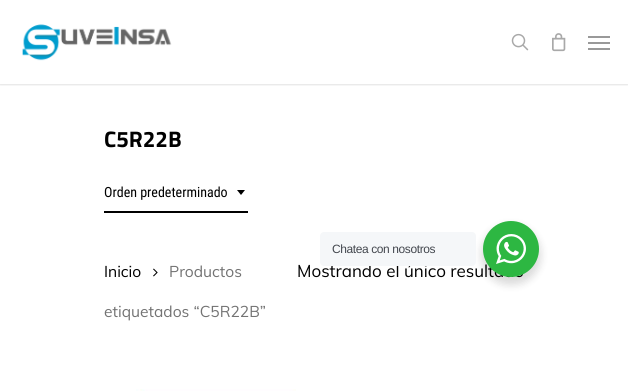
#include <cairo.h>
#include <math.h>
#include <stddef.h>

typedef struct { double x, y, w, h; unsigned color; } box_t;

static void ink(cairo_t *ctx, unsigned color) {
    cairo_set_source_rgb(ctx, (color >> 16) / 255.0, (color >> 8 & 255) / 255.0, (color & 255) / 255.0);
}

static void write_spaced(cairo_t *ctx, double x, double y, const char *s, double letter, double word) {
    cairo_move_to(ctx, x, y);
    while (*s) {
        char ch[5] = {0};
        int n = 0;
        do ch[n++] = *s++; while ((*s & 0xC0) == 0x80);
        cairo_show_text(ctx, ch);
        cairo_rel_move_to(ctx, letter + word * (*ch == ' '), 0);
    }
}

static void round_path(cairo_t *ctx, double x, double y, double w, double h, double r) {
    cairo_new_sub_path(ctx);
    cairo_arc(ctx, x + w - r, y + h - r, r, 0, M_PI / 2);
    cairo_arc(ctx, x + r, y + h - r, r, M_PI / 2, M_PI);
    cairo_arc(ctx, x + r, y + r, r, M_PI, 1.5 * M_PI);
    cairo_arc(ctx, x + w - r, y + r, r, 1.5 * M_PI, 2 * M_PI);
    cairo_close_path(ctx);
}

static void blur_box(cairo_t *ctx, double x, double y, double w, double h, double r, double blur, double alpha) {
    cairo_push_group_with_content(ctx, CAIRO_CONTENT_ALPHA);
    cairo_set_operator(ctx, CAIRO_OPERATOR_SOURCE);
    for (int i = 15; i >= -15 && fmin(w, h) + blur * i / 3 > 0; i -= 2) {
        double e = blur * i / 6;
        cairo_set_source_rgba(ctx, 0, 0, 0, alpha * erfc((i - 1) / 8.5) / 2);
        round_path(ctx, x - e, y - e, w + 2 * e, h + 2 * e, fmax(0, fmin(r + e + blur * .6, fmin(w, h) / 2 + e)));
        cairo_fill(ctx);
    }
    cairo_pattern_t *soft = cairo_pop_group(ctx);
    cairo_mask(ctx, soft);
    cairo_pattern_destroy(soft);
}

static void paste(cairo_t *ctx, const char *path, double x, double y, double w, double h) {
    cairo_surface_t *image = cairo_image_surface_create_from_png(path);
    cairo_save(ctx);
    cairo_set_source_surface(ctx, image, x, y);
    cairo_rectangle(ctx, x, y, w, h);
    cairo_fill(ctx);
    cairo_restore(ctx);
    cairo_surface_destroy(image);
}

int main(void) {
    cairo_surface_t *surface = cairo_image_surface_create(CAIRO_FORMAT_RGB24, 628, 391);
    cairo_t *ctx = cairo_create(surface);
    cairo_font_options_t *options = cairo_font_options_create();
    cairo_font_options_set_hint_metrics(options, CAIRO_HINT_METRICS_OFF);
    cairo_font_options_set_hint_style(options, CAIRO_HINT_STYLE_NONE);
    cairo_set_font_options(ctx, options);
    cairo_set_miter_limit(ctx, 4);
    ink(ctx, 0xFFFFFF);
    cairo_paint(ctx);
    cairo_save(ctx);
    cairo_rectangle(ctx, 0, 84, 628, 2);
    cairo_clip(ctx);
    ink(ctx, 0x000000);
    blur_box(ctx, 0, 0, 628, 84, 0, 1.5, 0.22);
    cairo_restore(ctx);
    paste(ctx, "media/1.png", 22, 24, 150, 37);
    paste(ctx, "media/2.png", 511, 33, 18, 18);
    paste(ctx, "media/3.png", 552, 33, 14, 19);
    {
        static const box_t items[] = {
            {588, 36, 22, 2, 0x999999},
            {588, 48, 22, 2, 0x999999},
            {588, 42, 22, 2, 0x999999},
        };
        for (size_t i = 0; i < sizeof items / sizeof *items; i++) {
            ink(ctx, items[i].color);
            cairo_rectangle(ctx, items[i].x, items[i].y, items[i].w, items[i].h);
            cairo_fill(ctx);
        }
    }
    cairo_select_font_face(ctx, "Titillium Web", CAIRO_FONT_SLANT_NORMAL, CAIRO_FONT_WEIGHT_BOLD);
    cairo_set_font_size(ctx, 22.5);
    ink(ctx, 0x000000);
    cairo_move_to(ctx, 104, 147);
    cairo_show_text(ctx, "C5R22B");
    cairo_rectangle(ctx, 104, 211, 144, 2);
    cairo_fill(ctx);
    cairo_select_font_face(ctx, "Roboto Condensed", CAIRO_FONT_SLANT_NORMAL, CAIRO_FONT_WEIGHT_NORMAL);
    cairo_set_font_size(ctx, 14);
    cairo_move_to(ctx, 104, 197);
    cairo_show_text(ctx, "Orden predeterminado");
    cairo_new_path(ctx);
    cairo_move_to(ctx, 237, 190);
    cairo_line_to(ctx, 245, 190);
    cairo_line_to(ctx, 241, 195);
    cairo_close_path(ctx);
    cairo_fill(ctx);
    cairo_select_font_face(ctx, "Muli", CAIRO_FONT_SLANT_NORMAL, CAIRO_FONT_WEIGHT_NORMAL);
    cairo_set_font_size(ctx, 15.6);
    cairo_move_to(ctx, 104, 277);
    cairo_show_text(ctx, "Inicio");
    paste(ctx, "media/4.png", 153, 268, 5, 9);
    ink(ctx, 0x737373);
    cairo_move_to(ctx, 169, 277);
    cairo_show_text(ctx, "Productos");
    cairo_move_to(ctx, 104, 317);
    cairo_show_text(ctx, "etiquetados “C5R22B”");
    cairo_set_font_size(ctx, 17);
    ink(ctx, 0x000000);
    cairo_move_to(ctx, 297, 277);
    cairo_show_text(ctx, "Mostrando el único resultado");
    paste(ctx, "media/5.png", 136, 389, 160, 2);
    ink(ctx, 0x000000);
    blur_box(ctx, 481, 225, 60, 60, 30, 4, 0.14);
    ink(ctx, 0xF5F7F9);
    round_path(ctx, 320, 232, 156, 34, 4);
    cairo_fill(ctx);
    cairo_select_font_face(ctx, "Liberation Sans", CAIRO_FONT_SLANT_NORMAL, CAIRO_FONT_WEIGHT_NORMAL);
    cairo_set_font_size(ctx, 12);
    ink(ctx, 0x43474E);
    write_spaced(ctx, 332, 253, "Chatea con nosotros", -0.4, 0);
    ink(ctx, 0x2DB742);
    cairo_new_path(ctx);
    cairo_arc(ctx, 511, 249, 28, 0, 2 * M_PI);
    cairo_fill(ctx);
    paste(ctx, "media/6.png", 496, 234, 30, 30);
    cairo_surface_write_to_png(surface, "image.png");
    cairo_font_options_destroy(options);
    cairo_destroy(ctx);
    cairo_surface_destroy(surface);
    return 0;
}
